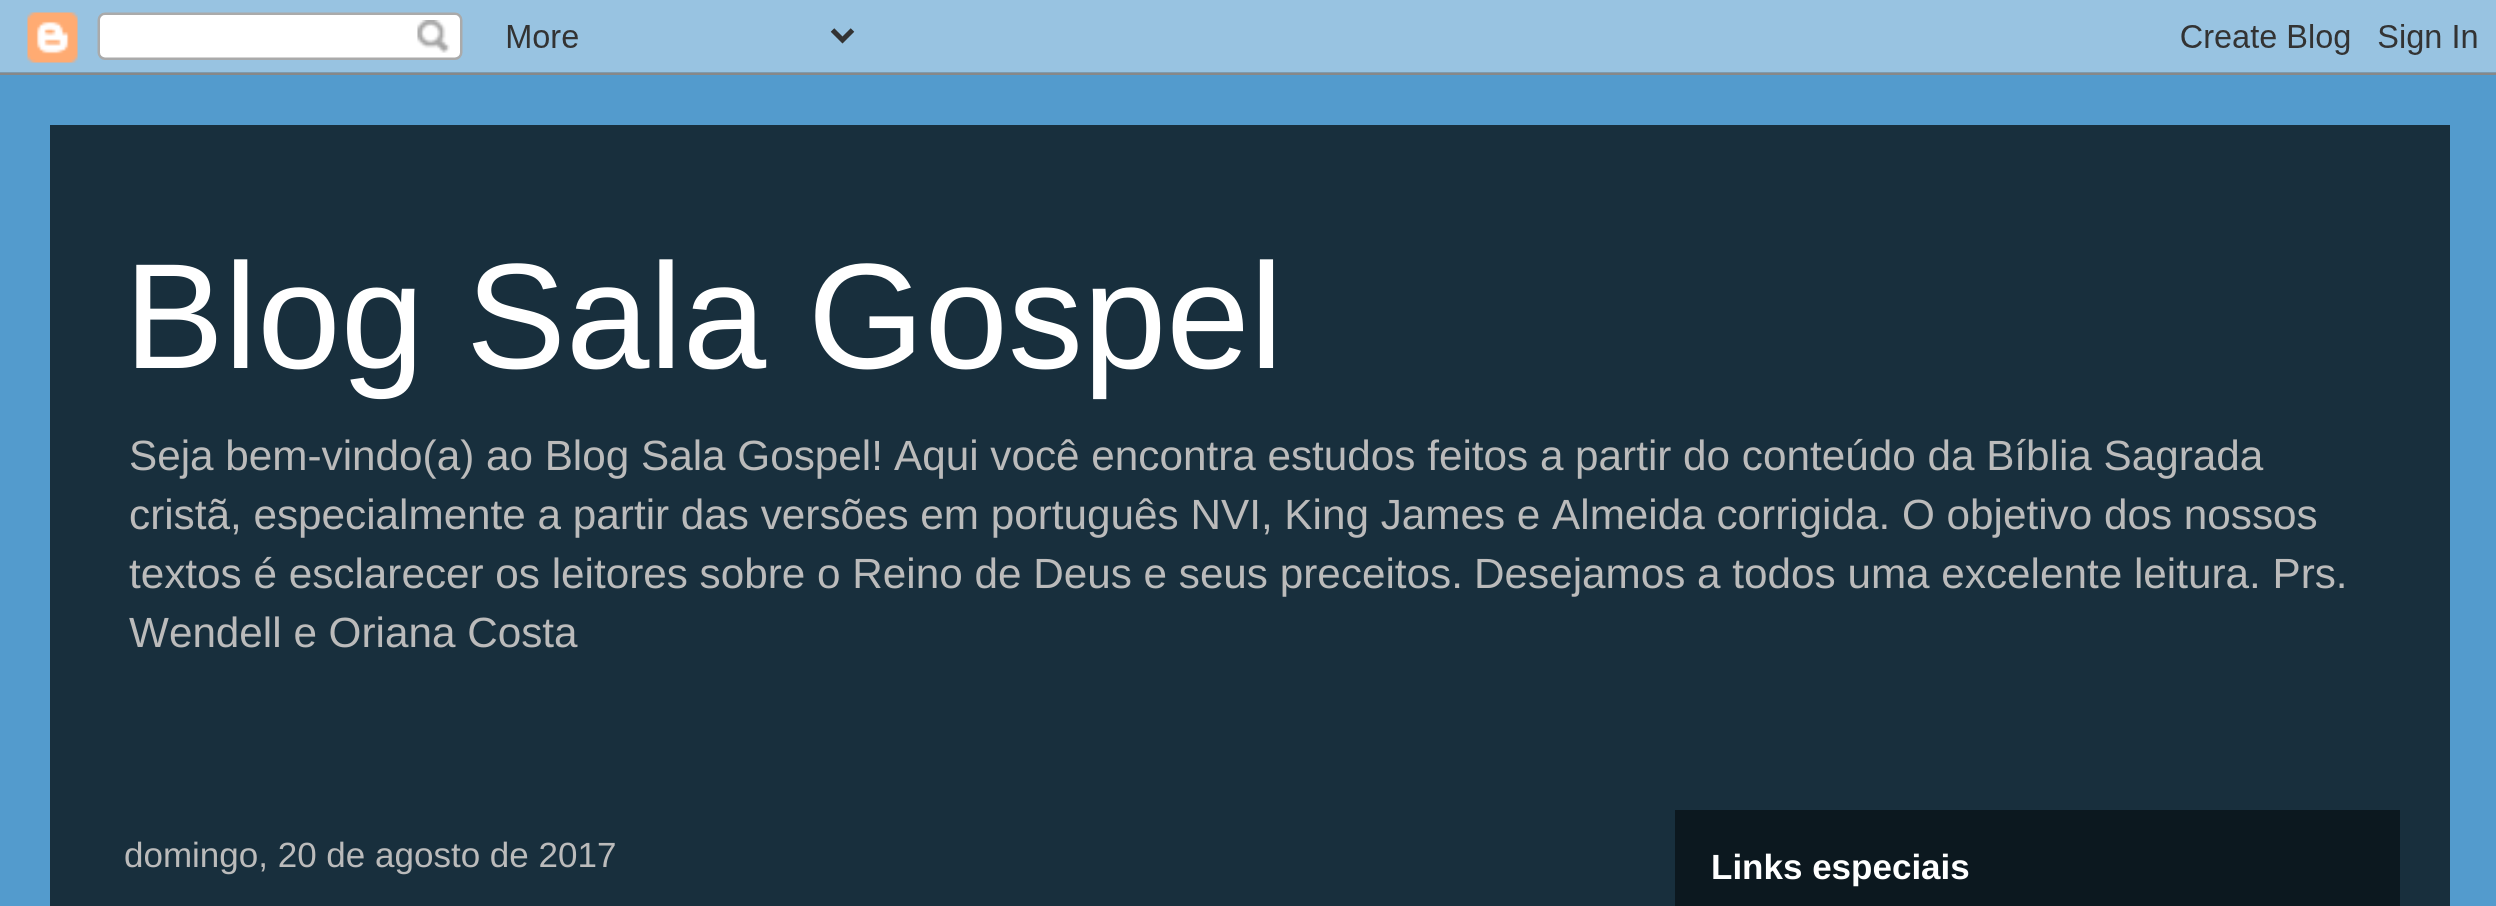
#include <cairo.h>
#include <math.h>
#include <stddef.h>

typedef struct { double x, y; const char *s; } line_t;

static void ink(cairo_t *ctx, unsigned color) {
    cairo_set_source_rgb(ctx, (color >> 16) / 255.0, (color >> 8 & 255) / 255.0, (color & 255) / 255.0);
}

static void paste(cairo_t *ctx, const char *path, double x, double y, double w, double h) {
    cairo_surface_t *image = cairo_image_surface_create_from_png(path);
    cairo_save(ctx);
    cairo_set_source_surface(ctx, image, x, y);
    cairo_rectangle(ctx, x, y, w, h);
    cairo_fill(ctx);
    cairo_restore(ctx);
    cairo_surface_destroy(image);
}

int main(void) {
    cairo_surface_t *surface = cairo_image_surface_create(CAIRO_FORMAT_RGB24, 2496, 906);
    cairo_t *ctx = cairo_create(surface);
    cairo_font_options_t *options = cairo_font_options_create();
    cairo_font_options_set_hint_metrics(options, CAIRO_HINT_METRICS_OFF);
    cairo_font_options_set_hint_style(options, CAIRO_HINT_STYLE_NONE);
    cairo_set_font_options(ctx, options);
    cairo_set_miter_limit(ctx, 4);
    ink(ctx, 0x539BCD);
    cairo_paint(ctx);
    paste(ctx, "media/1.png", 0, 0, 2496, 75);
    ink(ctx, 0x182F3D);
    cairo_rectangle(ctx, 50, 125, 2400, 781);
    cairo_fill(ctx);
    cairo_select_font_face(ctx, "Liberation Sans", CAIRO_FONT_SLANT_NORMAL, CAIRO_FONT_WEIGHT_NORMAL);
    cairo_set_font_size(ctx, 150);
    ink(ctx, 0xFFFFFF);
    cairo_move_to(ctx, 124, 368);
    cairo_show_text(ctx, "Blog Sala Gospel");
    cairo_set_font_size(ctx, 42.25);
    ink(ctx, 0xBBBBBB);
    {
        static const line_t items[] = {
            {129, 470, "Seja bem-vindo(a) ao Blog Sala Gospel!"},
            {894, 470, "Aqui você encontra estudos feitos a partir do conteúdo da Bíblia Sagrada"},
            {129, 529, "cristã, especialmente a partir das versões em português NVI, King James e Almeida corrigida. O objetivo dos nossos"},
            {129, 588, "textos é esclarecer os leitores sobre o Reino de Deus e seus preceitos."},
            {1474, 588, "Desejamos a todos uma excelente leitura. Prs."},
            {129, 647, "Wendell e Oriana Costa"},
        };
        for (size_t i = 0; i < sizeof items / sizeof *items; i++) {
            cairo_move_to(ctx, items[i].x, items[i].y);
            cairo_show_text(ctx, items[i].s);
        }
    }
    cairo_set_font_size(ctx, 35);
    cairo_move_to(ctx, 124, 867);
    cairo_show_text(ctx, "domingo, 20 de agosto de 2017");
    ink(ctx, 0x0C181F);
    cairo_rectangle(ctx, 1675, 810, 725, 96);
    cairo_fill(ctx);
    cairo_select_font_face(ctx, "Liberation Sans", CAIRO_FONT_SLANT_NORMAL, CAIRO_FONT_WEIGHT_BOLD);
    ink(ctx, 0xFFFFFF);
    cairo_move_to(ctx, 1711, 879);
    cairo_show_text(ctx, "Links especiais");
    cairo_surface_write_to_png(surface, "image.png");
    cairo_font_options_destroy(options);
    cairo_destroy(ctx);
    cairo_surface_destroy(surface);
    return 0;
}
